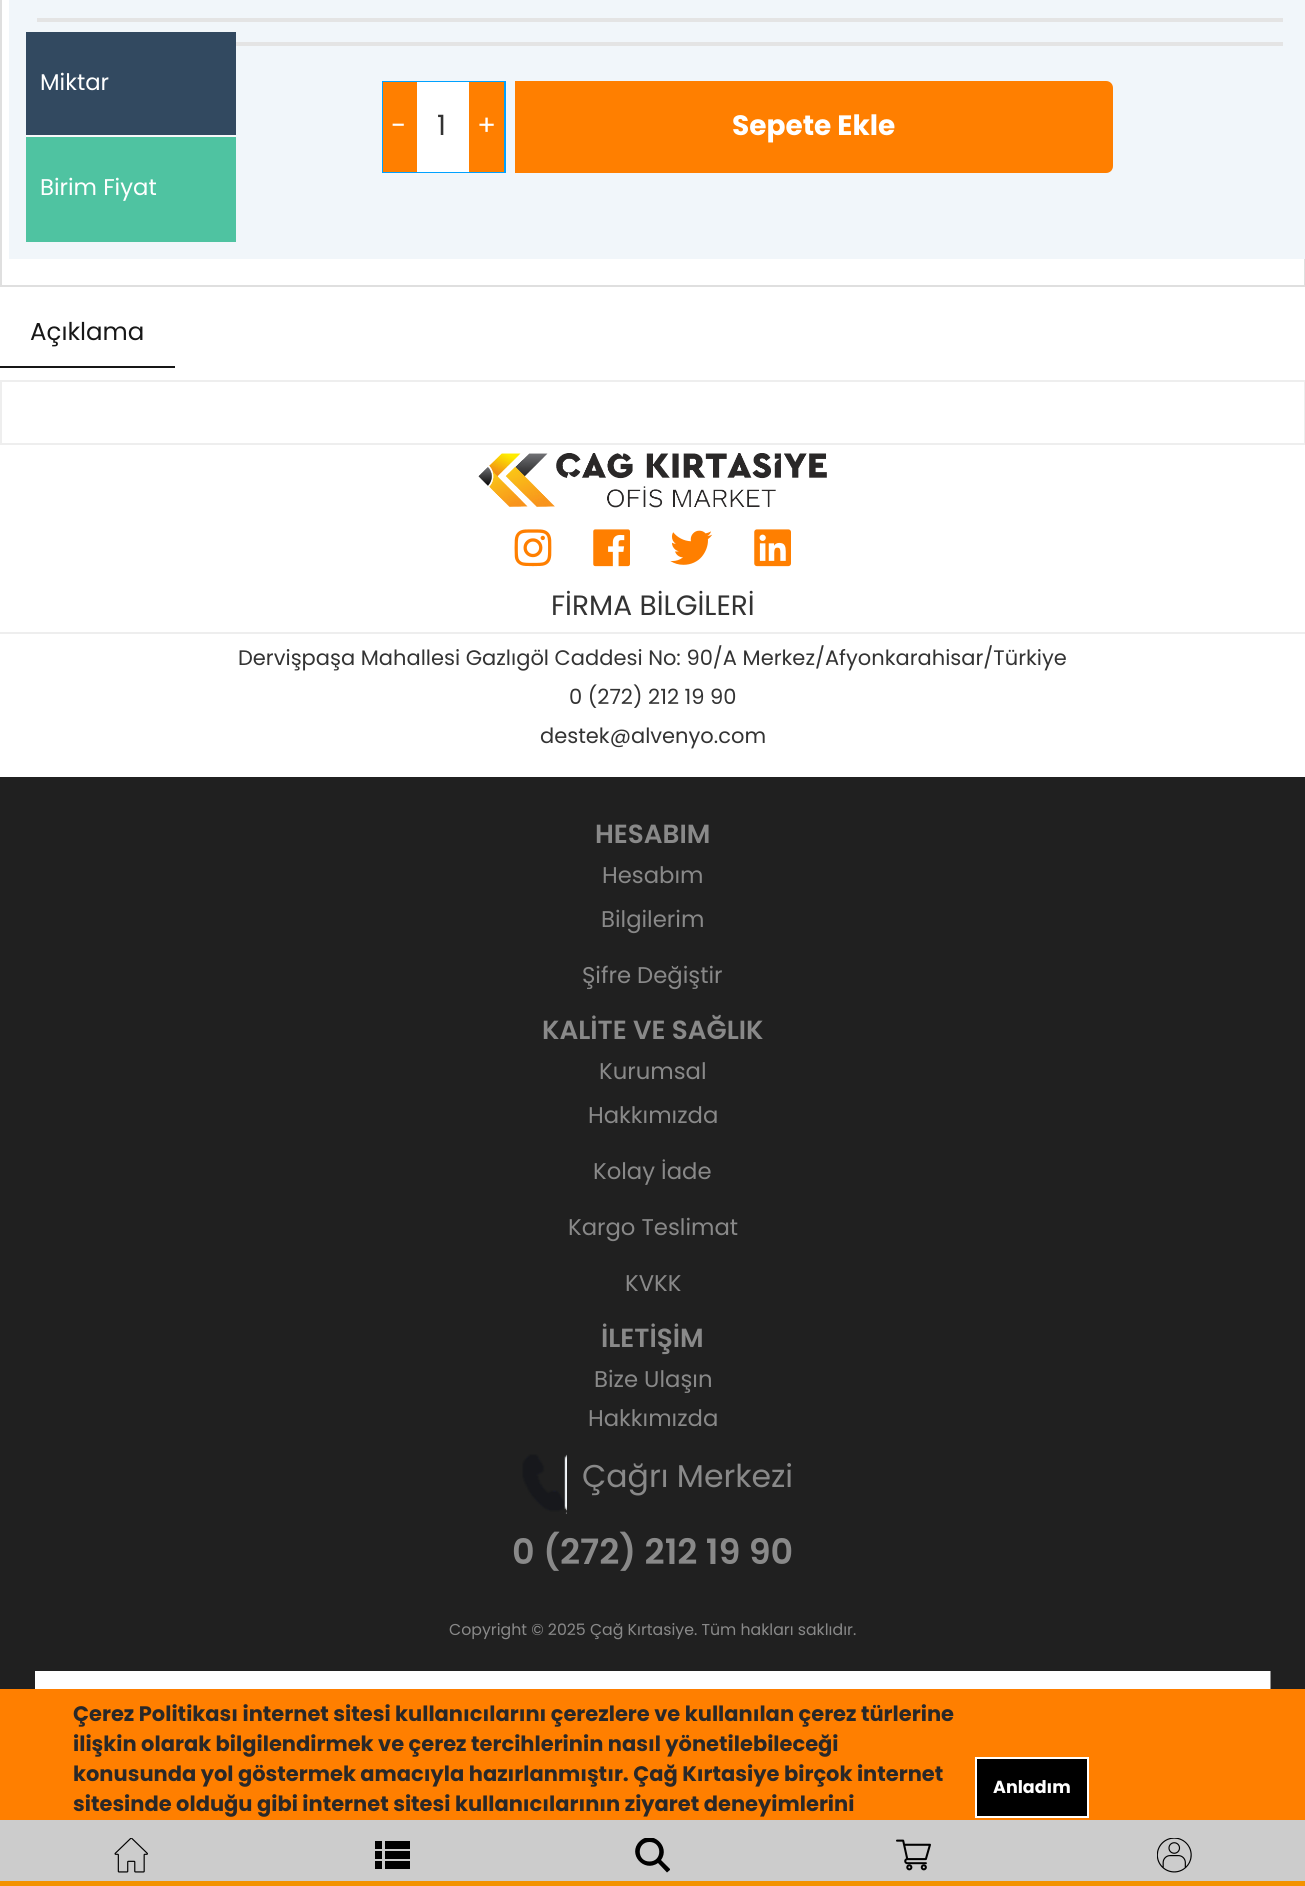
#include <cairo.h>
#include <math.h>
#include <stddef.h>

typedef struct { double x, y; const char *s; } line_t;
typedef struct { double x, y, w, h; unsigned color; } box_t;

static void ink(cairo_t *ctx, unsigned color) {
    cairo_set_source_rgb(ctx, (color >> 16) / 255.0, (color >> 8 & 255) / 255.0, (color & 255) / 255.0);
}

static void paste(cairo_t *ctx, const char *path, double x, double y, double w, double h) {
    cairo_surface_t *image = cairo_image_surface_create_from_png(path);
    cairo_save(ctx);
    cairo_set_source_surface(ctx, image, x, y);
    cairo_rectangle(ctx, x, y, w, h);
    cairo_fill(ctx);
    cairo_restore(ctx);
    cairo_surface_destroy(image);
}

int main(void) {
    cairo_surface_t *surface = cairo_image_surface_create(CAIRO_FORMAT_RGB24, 1305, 1886);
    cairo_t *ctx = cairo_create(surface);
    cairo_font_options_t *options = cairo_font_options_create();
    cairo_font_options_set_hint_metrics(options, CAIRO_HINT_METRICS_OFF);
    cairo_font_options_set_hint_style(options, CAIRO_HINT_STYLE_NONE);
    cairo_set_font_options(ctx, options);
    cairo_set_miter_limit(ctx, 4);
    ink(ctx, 0xFFFFFF);
    cairo_paint(ctx);
    cairo_rectangle(ctx, 1, -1, 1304, 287);
    ink(ctx, 0xDFDFDF);
    cairo_stroke(ctx);
    {
        static const box_t items[] = {
            {9, 0, 1296, 259, 0xF1F6FA},
            {37, 18, 1246, 4, 0xE4E4E4},
            {236, 42, 1047, 4, 0xE4E4E4},
            {26, 32, 210, 103, 0x324960},
            {26, 135, 210, 2, 0xF7F7F9},
        };
        for (size_t i = 0; i < sizeof items / sizeof *items; i++) {
            ink(ctx, items[i].color);
            cairo_rectangle(ctx, items[i].x, items[i].y, items[i].w, items[i].h);
            cairo_fill(ctx);
        }
    }
    cairo_select_font_face(ctx, "Poppins", CAIRO_FONT_SLANT_NORMAL, CAIRO_FONT_WEIGHT_NORMAL);
    cairo_set_font_size(ctx, 22.75);
    ink(ctx, 0xFFFFFF);
    cairo_move_to(ctx, 40, 90);
    cairo_show_text(ctx, "Miktar");
    ink(ctx, 0x4FC3A1);
    cairo_rectangle(ctx, 26, 137, 210, 105);
    cairo_fill(ctx);
    ink(ctx, 0xFFFFFF);
    cairo_move_to(ctx, 40, 195);
    cairo_show_text(ctx, "Birim Fiyat");
    cairo_rectangle(ctx, 383, 82, 122, 90);
    ink(ctx, 0x00A1FF);
    cairo_stroke(ctx);
    ink(ctx, 0xFF7F00);
    cairo_rectangle(ctx, 383, 82, 34, 90);
    cairo_fill(ctx);
    cairo_set_font_size(ctx, 28);
    ink(ctx, 0xFFFFFF);
    cairo_move_to(ctx, 391, 135);
    cairo_show_text(ctx, "-");
    cairo_rectangle(ctx, 417, 82, 52, 90);
    cairo_fill(ctx);
    ink(ctx, 0x333333);
    cairo_move_to(ctx, 437, 135);
    cairo_show_text(ctx, "1");
    ink(ctx, 0xFF7F00);
    cairo_rectangle(ctx, 469, 82, 35, 90);
    cairo_fill(ctx);
    ink(ctx, 0xFFFFFF);
    cairo_move_to(ctx, 477, 135);
    cairo_show_text(ctx, "+");
    ink(ctx, 0xFF7F00);
    cairo_new_path(ctx);
    cairo_move_to(ctx, 515, 81);
    cairo_line_to(ctx, 1106, 81);
    cairo_curve_to(ctx, 1110, 81, 1113, 84, 1113, 88);
    cairo_line_to(ctx, 1113, 166);
    cairo_curve_to(ctx, 1113, 170, 1110, 173, 1106, 173);
    cairo_line_to(ctx, 515, 173);
    cairo_close_path(ctx);
    cairo_fill(ctx);
    cairo_select_font_face(ctx, "Poppins", CAIRO_FONT_SLANT_NORMAL, CAIRO_FONT_WEIGHT_BOLD);
    ink(ctx, 0xFFFFFF);
    cairo_move_to(ctx, 732, 135);
    cairo_show_text(ctx, "Sepete Ekle");
    ink(ctx, 0x171717);
    cairo_rectangle(ctx, 0, 366, 175, 2);
    cairo_fill(ctx);
    cairo_select_font_face(ctx, "Poppins", CAIRO_FONT_SLANT_NORMAL, CAIRO_FONT_WEIGHT_NORMAL);
    cairo_set_font_size(ctx, 24.5);
    cairo_move_to(ctx, 30, 340);
    cairo_show_text(ctx, "Açıklama");
    cairo_rectangle(ctx, 1, 381, 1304, 63);
    ink(ctx, 0xEEEEEE);
    cairo_stroke(ctx);
    paste(ctx, "media/1.png", 478, 453, 349, 55);
    paste(ctx, "media/2.png", 514, 529, 38, 38);
    paste(ctx, "media/3.png", 593, 529, 37, 38);
    paste(ctx, "media/4.png", 670, 530, 43, 35);
    paste(ctx, "media/5.png", 754, 529, 37, 38);
    cairo_rectangle(ctx, 0, 632, 1305, 2);
    cairo_fill(ctx);
    cairo_set_font_size(ctx, 28);
    ink(ctx, 0x333333);
    cairo_move_to(ctx, 551, 615);
    cairo_show_text(ctx, "FİRMA BİLGİLERİ");
    cairo_set_font_size(ctx, 21);
    {
        static const line_t items[] = {
            {238, 665, "Dervişpaşa Mahallesi Gazlıgöl Caddesi No: 90/A Merkez/Afyonkarahisar/Türkiye"},
            {569, 704, "0 (272) 212 19 90"},
            {540, 743, "destek@alvenyo.com"},
        };
        for (size_t i = 0; i < sizeof items / sizeof *items; i++) {
            cairo_move_to(ctx, items[i].x, items[i].y);
            cairo_show_text(ctx, items[i].s);
        }
    }
    ink(ctx, 0x202020);
    cairo_rectangle(ctx, 0, 777, 1305, 912);
    cairo_fill(ctx);
    cairo_select_font_face(ctx, "Poppins SemiBold", CAIRO_FONT_SLANT_NORMAL, CAIRO_FONT_WEIGHT_NORMAL);
    cairo_set_font_size(ctx, 26.25);
    ink(ctx, 0x898989);
    cairo_move_to(ctx, 595, 843);
    cairo_show_text(ctx, "HESABIM");
    cairo_select_font_face(ctx, "Poppins", CAIRO_FONT_SLANT_NORMAL, CAIRO_FONT_WEIGHT_NORMAL);
    cairo_set_font_size(ctx, 22.75);
    {
        static const line_t items[] = {
            {602, 883, "Hesabım"},
            {601, 927, "Bilgilerim"},
            {582, 983, "Şifre Değiştir"},
        };
        for (size_t i = 0; i < sizeof items / sizeof *items; i++) {
            cairo_move_to(ctx, items[i].x, items[i].y);
            cairo_show_text(ctx, items[i].s);
        }
    }
    cairo_select_font_face(ctx, "Poppins SemiBold", CAIRO_FONT_SLANT_NORMAL, CAIRO_FONT_WEIGHT_NORMAL);
    cairo_set_font_size(ctx, 26.25);
    cairo_move_to(ctx, 542, 1039);
    cairo_show_text(ctx, "KALİTE VE SAĞLIK");
    cairo_select_font_face(ctx, "Poppins", CAIRO_FONT_SLANT_NORMAL, CAIRO_FONT_WEIGHT_NORMAL);
    cairo_set_font_size(ctx, 22.75);
    {
        static const line_t items[] = {
            {599, 1079, "Kurumsal"},
            {588, 1123, "Hakkımızda"},
            {593, 1179, "Kolay İade"},
            {568, 1235, "Kargo Teslimat"},
            {625, 1291, "KVKK"},
        };
        for (size_t i = 0; i < sizeof items / sizeof *items; i++) {
            cairo_move_to(ctx, items[i].x, items[i].y);
            cairo_show_text(ctx, items[i].s);
        }
    }
    cairo_select_font_face(ctx, "Poppins SemiBold", CAIRO_FONT_SLANT_NORMAL, CAIRO_FONT_WEIGHT_NORMAL);
    cairo_set_font_size(ctx, 26.25);
    cairo_move_to(ctx, 601, 1347);
    cairo_show_text(ctx, "İLETİŞİM");
    cairo_select_font_face(ctx, "Poppins", CAIRO_FONT_SLANT_NORMAL, CAIRO_FONT_WEIGHT_NORMAL);
    cairo_set_font_size(ctx, 22.75);
    cairo_move_to(ctx, 594, 1387);
    cairo_show_text(ctx, "Bize Ulaşın");
    cairo_move_to(ctx, 588, 1426);
    cairo_show_text(ctx, "Hakkımızda");
    paste(ctx, "media/6.png", 522, 1454, 45, 60);
    cairo_set_font_size(ctx, 31.5);
    cairo_move_to(ctx, 582, 1487);
    cairo_show_text(ctx, "Çağrı Merkezi");
    cairo_select_font_face(ctx, "Poppins SemiBold", CAIRO_FONT_SLANT_NORMAL, CAIRO_FONT_WEIGHT_NORMAL);
    cairo_set_font_size(ctx, 35);
    cairo_move_to(ctx, 512, 1564);
    cairo_show_text(ctx, "0 (272) 212 19 90");
    cairo_select_font_face(ctx, "Poppins", CAIRO_FONT_SLANT_NORMAL, CAIRO_FONT_WEIGHT_NORMAL);
    cairo_set_font_size(ctx, 15.75);
    cairo_move_to(ctx, 449, 1635);
    cairo_show_text(ctx, "Copyright © 2025 Çağ Kırtasiye. Tüm hakları saklıdır.");
    paste(ctx, "media/7.png", 35, 1671, 1236, 18);
    ink(ctx, 0xFF7F00);
    cairo_rectangle(ctx, 0, 1689, 1305, 131);
    cairo_fill(ctx);
    cairo_select_font_face(ctx, "Poppins", CAIRO_FONT_SLANT_NORMAL, CAIRO_FONT_WEIGHT_BOLD);
    cairo_set_font_size(ctx, 21);
    ink(ctx, 0x2A2828);
    {
        static const line_t items[] = {
            {73, 1721, "Çerez Politikası internet sitesi kullanıcılarını çerezlere ve kullanılan çerez türlerine"},
            {73, 1751, "ilişkin olarak bilgilendirmek ve çerez tercihlerinin nasıl yönetilebileceği"},
            {73, 1781, "konusunda yol göstermek amacıyla hazırlanmıştır. Çağ Kırtasiye birçok internet"},
            {73, 1811, "sitesinde olduğu gibi internet sitesi kullanıcılarının ziyaret deneyimlerini"},
        };
        for (size_t i = 0; i < sizeof items / sizeof *items; i++) {
            cairo_move_to(ctx, items[i].x, items[i].y);
            cairo_show_text(ctx, items[i].s);
        }
    }
    ink(ctx, 0x000000);
    cairo_rectangle(ctx, 976, 1758, 112, 59);
    cairo_fill_preserve(ctx);
    ink(ctx, 0xFFFFFF);
    cairo_stroke(ctx);
    cairo_set_font_size(ctx, 17.5);
    cairo_move_to(ctx, 993, 1793);
    cairo_show_text(ctx, "Anladım");
    ink(ctx, 0xCCCCCC);
    cairo_rectangle(ctx, 0, 1820, 1305, 61);
    cairo_fill(ctx);
    ink(ctx, 0xF39200);
    cairo_rectangle(ctx, 0, 1881, 1305, 5);
    cairo_fill(ctx);
    paste(ctx, "media/8.png", 114, 1838, 34, 35);
    {
        static const box_t items[] = {
            {375, 1841, 7, 8, 0x000000},
            {385, 1841, 25, 8, 0x000000},
            {375, 1851, 7, 8, 0x000000},
            {385, 1851, 25, 8, 0x000000},
            {375, 1861, 7, 8, 0x000000},
            {385, 1861, 25, 8, 0x000000},
        };
        for (size_t i = 0; i < sizeof items / sizeof *items; i++) {
            ink(ctx, items[i].color);
            cairo_rectangle(ctx, items[i].x, items[i].y, items[i].w, items[i].h);
            cairo_fill(ctx);
        }
    }
    cairo_save(ctx);
    cairo_rectangle(ctx, 635, 1838, 35, 35);
    cairo_clip(ctx);
    cairo_new_path(ctx);
    cairo_move_to(ctx, 661, 1860);
    cairo_curve_to(ctx, 671, 1846.5, 652, 1829, 639.5, 1841.5);
    cairo_curve_to(ctx, 627, 1854, 644, 1873, 658, 1863);
    cairo_line_to(ctx, 667, 1872.5);
    cairo_line_to(ctx, 670.5, 1869.5);
    cairo_close_path(ctx);
    cairo_move_to(ctx, 649.5, 1861.5);
    cairo_curve_to(ctx, 636.5, 1861.5, 636.5, 1842, 649.5, 1842);
    cairo_curve_to(ctx, 662.5, 1842, 662.5, 1861.5, 649.5, 1861.5);
    cairo_close_path(ctx);
    cairo_fill(ctx);
    cairo_restore(ctx);
    paste(ctx, "media/9.png", 896, 1839, 35, 32);
    paste(ctx, "media/10.png", 1157, 1838, 35, 35);
    cairo_surface_write_to_png(surface, "image.png");
    cairo_font_options_destroy(options);
    cairo_destroy(ctx);
    cairo_surface_destroy(surface);
    return 0;
}
